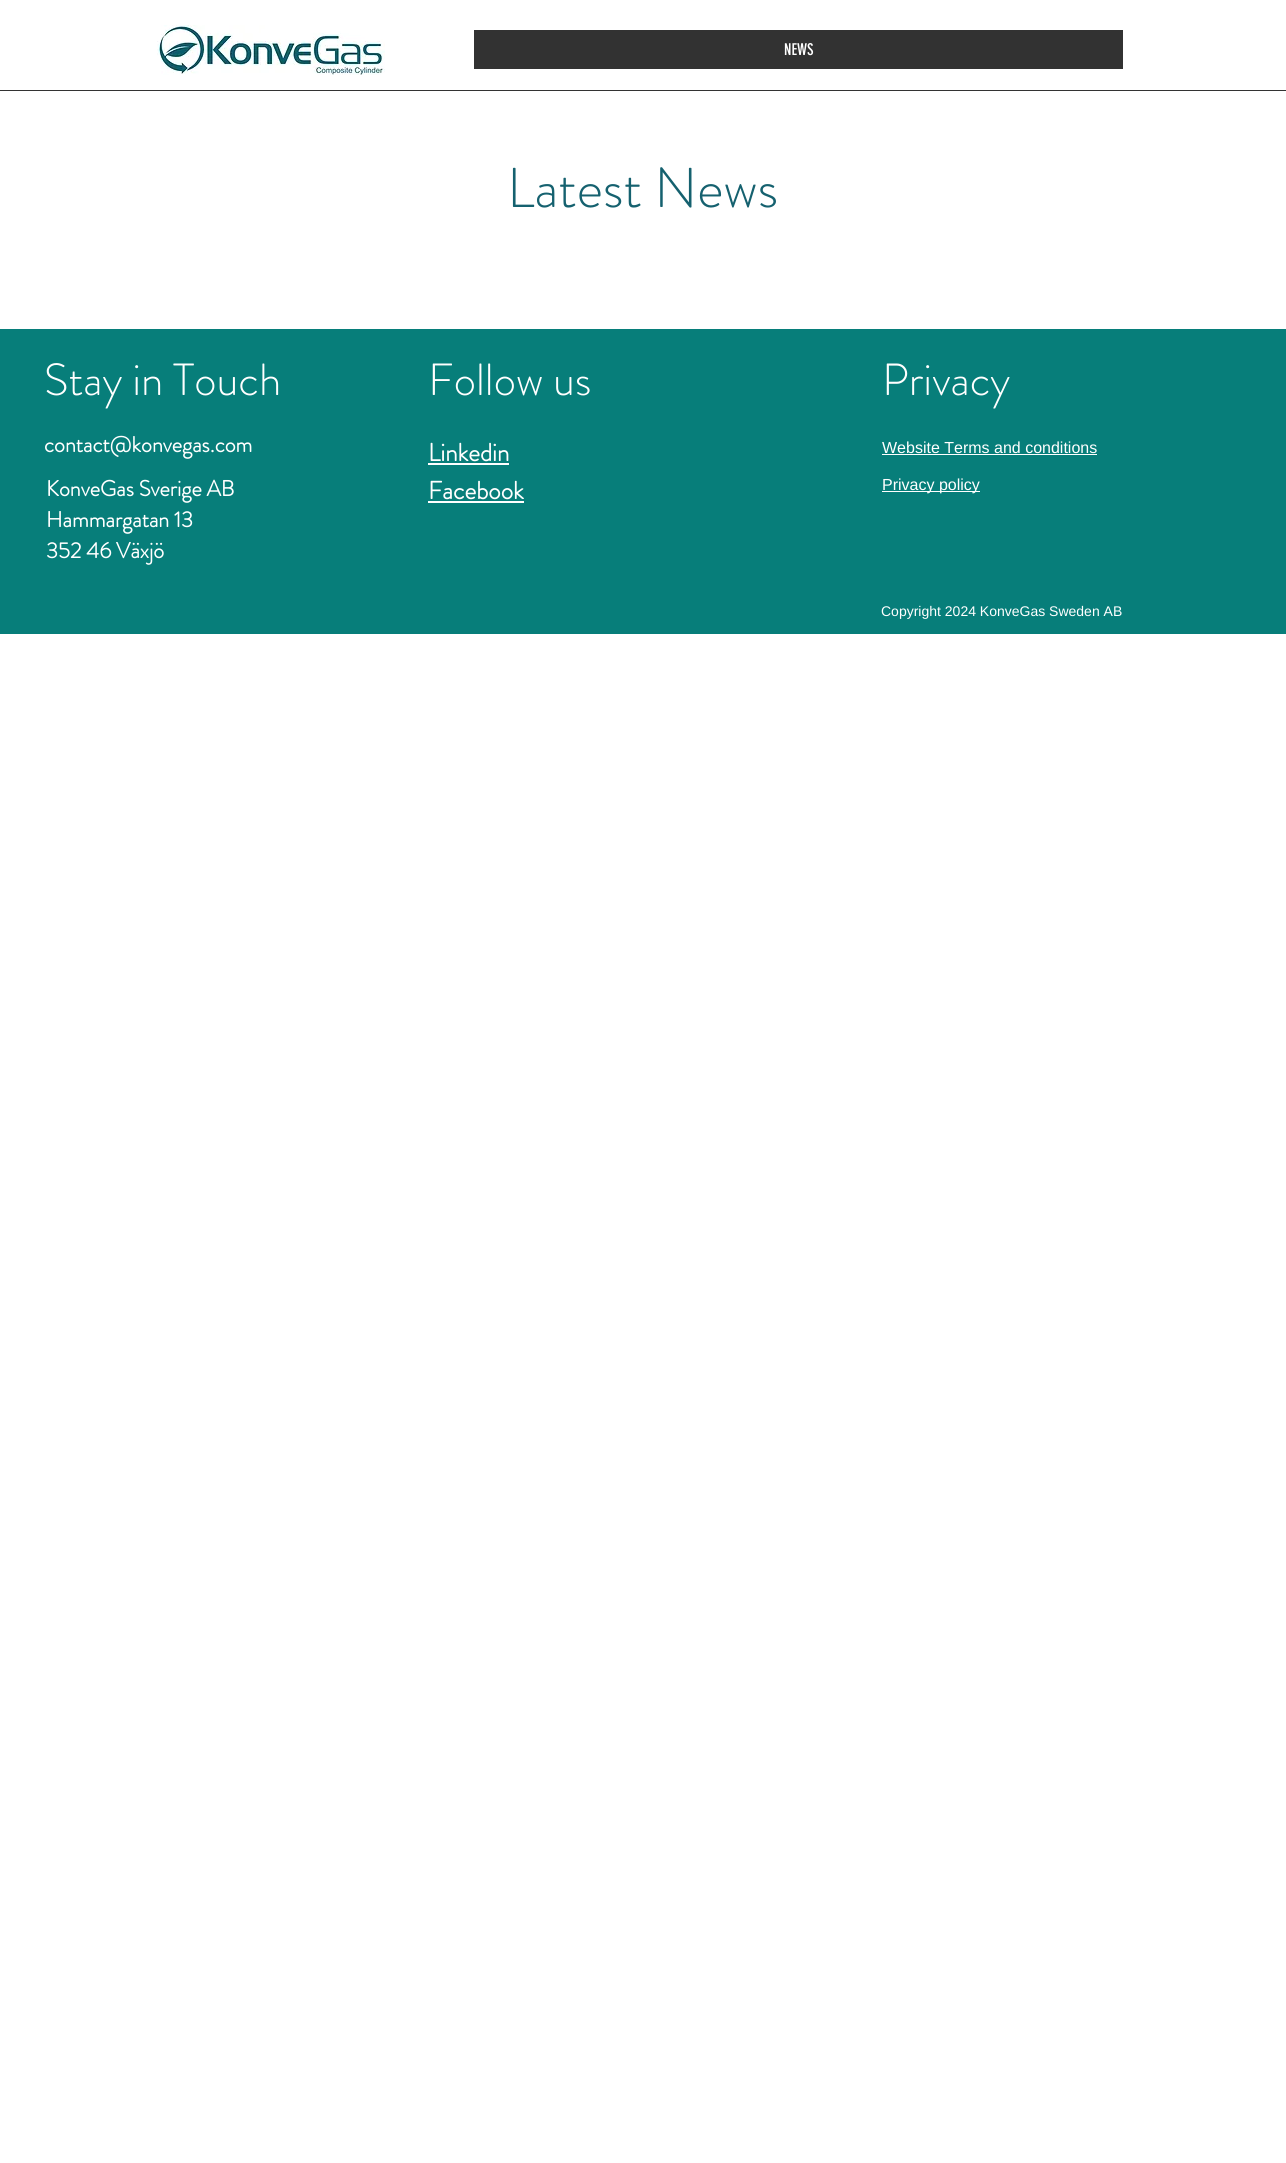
#include <cairo.h>
#include <math.h>
#include <stddef.h>

typedef struct { double x, y; const char *s; } line_t;

static void ink(cairo_t *ctx, unsigned color) {
    cairo_set_source_rgb(ctx, (color >> 16) / 255.0, (color >> 8 & 255) / 255.0, (color & 255) / 255.0);
}

static void paste(cairo_t *ctx, const char *path, double x, double y, double w, double h) {
    cairo_surface_t *image = cairo_image_surface_create_from_png(path);
    cairo_save(ctx);
    cairo_set_source_surface(ctx, image, x, y);
    cairo_rectangle(ctx, x, y, w, h);
    cairo_fill(ctx);
    cairo_restore(ctx);
    cairo_surface_destroy(image);
}

int main(void) {
    cairo_surface_t *surface = cairo_image_surface_create(CAIRO_FORMAT_RGB24, 1286, 2163);
    cairo_t *ctx = cairo_create(surface);
    cairo_font_options_t *options = cairo_font_options_create();
    cairo_font_options_set_hint_metrics(options, CAIRO_HINT_METRICS_OFF);
    cairo_font_options_set_hint_style(options, CAIRO_HINT_STYLE_NONE);
    cairo_set_font_options(ctx, options);
    cairo_set_miter_limit(ctx, 4);
    ink(ctx, 0xFFFFFF);
    cairo_paint(ctx);
    paste(ctx, "media/1.png", 157, 25, 228, 50);
    ink(ctx, 0x323232);
    cairo_rectangle(ctx, 474, 30, 649, 39);
    cairo_fill(ctx);
    cairo_select_font_face(ctx, "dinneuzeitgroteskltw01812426", CAIRO_FONT_SLANT_NORMAL, CAIRO_FONT_WEIGHT_NORMAL);
    cairo_set_font_size(ctx, 16);
    ink(ctx, 0xFFFFFF);
    cairo_move_to(ctx, 784, 55);
    cairo_show_text(ctx, "NEWS");
    ink(ctx, 0x333333);
    cairo_rectangle(ctx, 0, 90, 1286, 1);
    cairo_fill(ctx);
    cairo_select_font_face(ctx, "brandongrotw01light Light", CAIRO_FONT_SLANT_NORMAL, CAIRO_FONT_WEIGHT_NORMAL);
    cairo_set_font_size(ctx, 56);
    ink(ctx, 0x15616F);
    cairo_move_to(ctx, 507, 207);
    cairo_show_text(ctx, "Latest News");
    ink(ctx, 0x077E7A);
    cairo_rectangle(ctx, 0, 329, 1286, 305);
    cairo_fill(ctx);
    cairo_set_font_size(ctx, 45);
    ink(ctx, 0xFFFFFF);
    cairo_move_to(ctx, 44, 395);
    cairo_show_text(ctx, "Stay in Touch");
    cairo_select_font_face(ctx, "brandongrotw01light", CAIRO_FONT_SLANT_NORMAL, CAIRO_FONT_WEIGHT_BOLD);
    cairo_set_font_size(ctx, 22);
    {
        static const line_t items[] = {
            {44, 452, "contact@konvegas.com"},
            {46, 496, "KonveGas Sverige AB"},
            {46, 527, "Hammargatan 13"},
            {46, 558, "352 46 Växjö"},
        };
        for (size_t i = 0; i < sizeof items / sizeof *items; i++) {
            cairo_move_to(ctx, items[i].x, items[i].y);
            cairo_show_text(ctx, items[i].s);
        }
    }
    cairo_select_font_face(ctx, "brandongrotw01light Light", CAIRO_FONT_SLANT_NORMAL, CAIRO_FONT_WEIGHT_NORMAL);
    cairo_set_font_size(ctx, 45);
    cairo_move_to(ctx, 428, 395);
    cairo_show_text(ctx, "Follow us");
    cairo_select_font_face(ctx, "brandongrotw01light", CAIRO_FONT_SLANT_NORMAL, CAIRO_FONT_WEIGHT_BOLD);
    cairo_set_font_size(ctx, 25);
    cairo_move_to(ctx, 428, 461);
    cairo_show_text(ctx, "Linkedin");
    cairo_rectangle(ctx, 428, 463, 81, 2);
    cairo_fill(ctx);
    cairo_move_to(ctx, 428, 499);
    cairo_show_text(ctx, "Facebook");
    cairo_rectangle(ctx, 428, 501, 96, 2);
    cairo_fill(ctx);
    cairo_select_font_face(ctx, "brandongrotw01light Light", CAIRO_FONT_SLANT_NORMAL, CAIRO_FONT_WEIGHT_NORMAL);
    cairo_set_font_size(ctx, 45);
    cairo_move_to(ctx, 882, 395);
    cairo_show_text(ctx, "Privacy");
    cairo_select_font_face(ctx, "Liberation Sans", CAIRO_FONT_SLANT_NORMAL, CAIRO_FONT_WEIGHT_NORMAL);
    cairo_set_font_size(ctx, 16);
    cairo_move_to(ctx, 882, 453);
    cairo_show_text(ctx, "Website Terms and conditions");
    cairo_rectangle(ctx, 882, 454, 215, 1);
    cairo_fill(ctx);
    cairo_rectangle(ctx, 882, 491, 98, 1);
    cairo_fill(ctx);
    cairo_move_to(ctx, 882, 490);
    cairo_show_text(ctx, "Privacy policy");
    cairo_set_font_size(ctx, 14);
    cairo_move_to(ctx, 881, 616);
    cairo_show_text(ctx, "Copyright 2024 KonveGas Sweden AB");
    cairo_surface_write_to_png(surface, "image.png");
    cairo_font_options_destroy(options);
    cairo_destroy(ctx);
    cairo_surface_destroy(surface);
    return 0;
}
